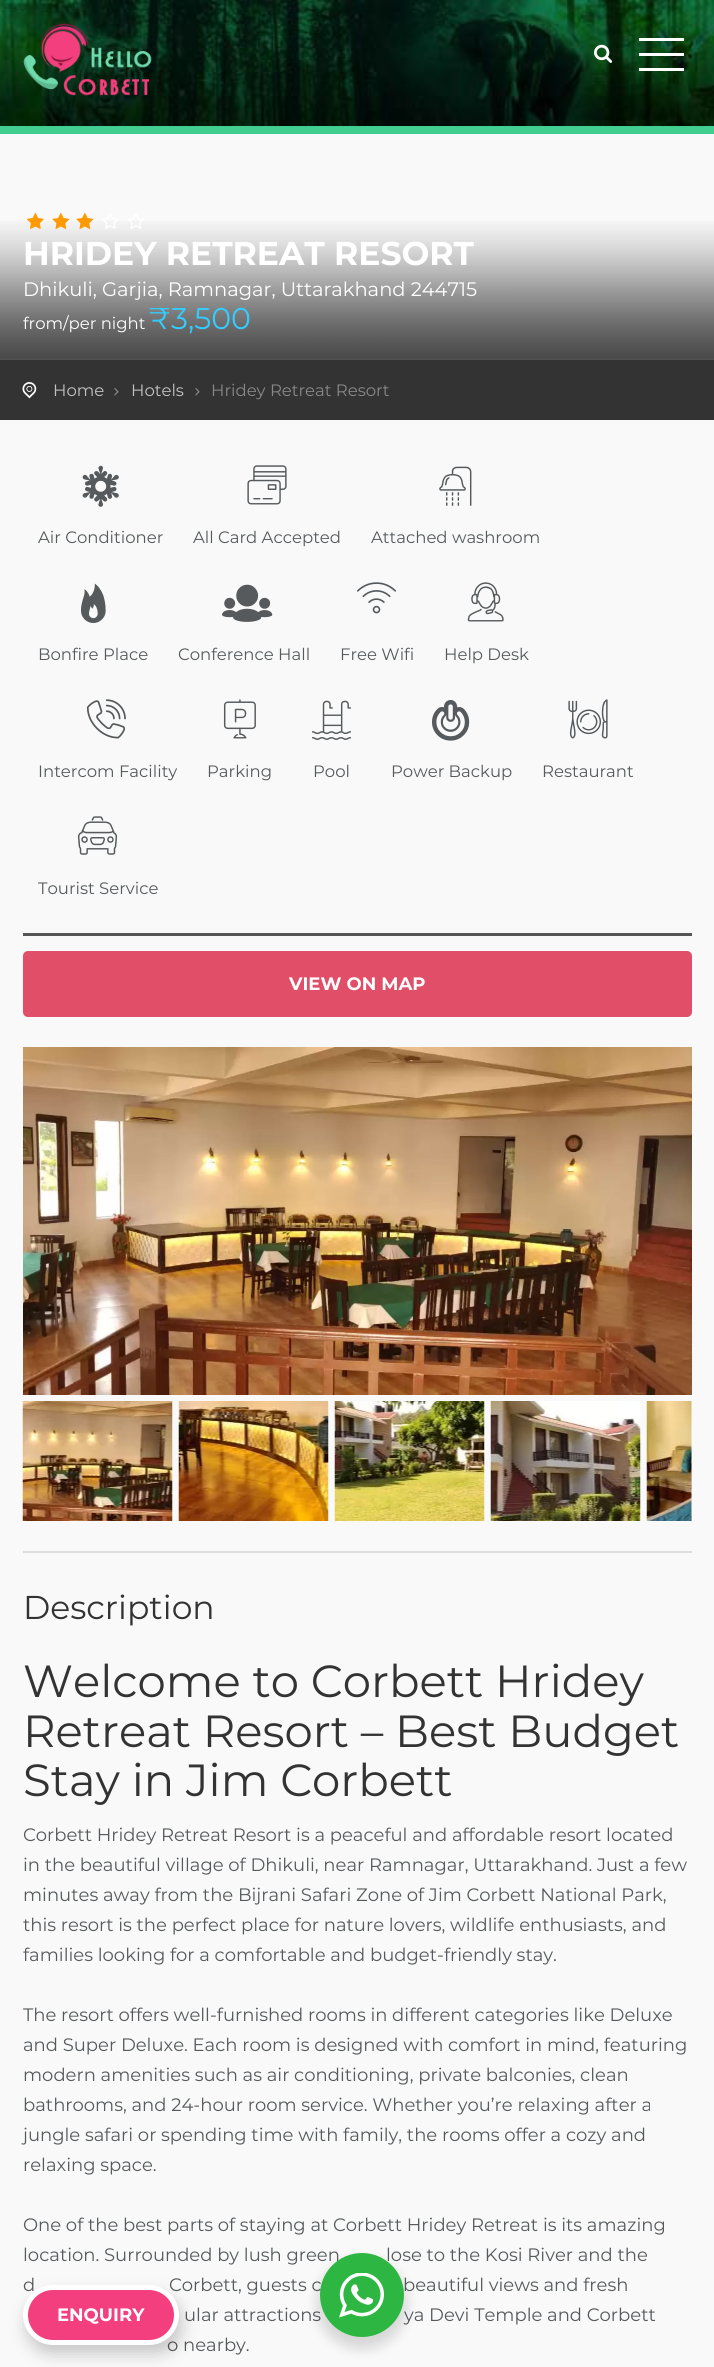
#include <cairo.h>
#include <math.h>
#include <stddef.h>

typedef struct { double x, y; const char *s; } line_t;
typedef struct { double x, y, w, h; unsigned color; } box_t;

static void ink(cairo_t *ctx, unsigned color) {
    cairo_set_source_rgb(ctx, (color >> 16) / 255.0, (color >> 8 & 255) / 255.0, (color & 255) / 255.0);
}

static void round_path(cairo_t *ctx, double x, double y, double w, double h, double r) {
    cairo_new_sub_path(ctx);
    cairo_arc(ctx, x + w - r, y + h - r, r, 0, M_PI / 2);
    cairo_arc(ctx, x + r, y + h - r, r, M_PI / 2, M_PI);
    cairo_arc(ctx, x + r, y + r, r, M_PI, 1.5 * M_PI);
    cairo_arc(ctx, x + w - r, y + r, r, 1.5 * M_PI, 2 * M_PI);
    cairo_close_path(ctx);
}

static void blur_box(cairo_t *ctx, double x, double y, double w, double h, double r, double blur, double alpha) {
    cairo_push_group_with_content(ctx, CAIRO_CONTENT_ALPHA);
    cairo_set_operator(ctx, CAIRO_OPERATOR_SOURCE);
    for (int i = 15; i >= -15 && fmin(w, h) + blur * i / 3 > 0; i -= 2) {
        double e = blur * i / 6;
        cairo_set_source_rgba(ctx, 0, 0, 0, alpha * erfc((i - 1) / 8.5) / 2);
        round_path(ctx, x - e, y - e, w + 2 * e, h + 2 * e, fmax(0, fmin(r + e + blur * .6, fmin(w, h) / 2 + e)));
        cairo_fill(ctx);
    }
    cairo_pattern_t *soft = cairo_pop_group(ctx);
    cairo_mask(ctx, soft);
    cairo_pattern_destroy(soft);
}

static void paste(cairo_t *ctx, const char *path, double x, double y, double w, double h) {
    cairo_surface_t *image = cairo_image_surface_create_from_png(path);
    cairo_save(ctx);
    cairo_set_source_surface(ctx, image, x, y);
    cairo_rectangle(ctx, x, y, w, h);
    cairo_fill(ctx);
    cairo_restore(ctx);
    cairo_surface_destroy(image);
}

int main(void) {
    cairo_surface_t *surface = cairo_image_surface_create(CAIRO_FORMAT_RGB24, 714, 2367);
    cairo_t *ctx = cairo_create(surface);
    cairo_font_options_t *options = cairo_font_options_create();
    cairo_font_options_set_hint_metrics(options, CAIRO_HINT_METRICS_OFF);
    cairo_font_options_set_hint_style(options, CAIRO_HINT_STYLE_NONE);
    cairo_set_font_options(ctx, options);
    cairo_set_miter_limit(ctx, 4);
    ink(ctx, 0xF9F9F9);
    cairo_paint(ctx);
    paste(ctx, "media/1.png", 0, 0, 714, 126);
    ink(ctx, 0x42CE91);
    cairo_rectangle(ctx, 0, 126, 714, 8);
    cairo_fill(ctx);
    paste(ctx, "media/2.png", 23, 23, 129, 73);
    paste(ctx, "media/3.png", 594, 44, 19, 19);
    {
        static const box_t items[] = {
            {639, 53, 45, 3, 0xFFFFFF},
            {639, 38, 45, 3, 0xFFFFFF},
            {639, 68, 45, 3, 0xFFFFFF},
        };
        for (size_t i = 0; i < sizeof items / sizeof *items; i++) {
            ink(ctx, items[i].color);
            cairo_rectangle(ctx, items[i].x, items[i].y, items[i].w, items[i].h);
            cairo_fill(ctx);
        }
    }
    paste(ctx, "media/4.png", 0, 221, 714, 139);
    paste(ctx, "media/5.png", 27, 213, 17, 16);
    paste(ctx, "media/6.png", 52, 213, 18, 16);
    paste(ctx, "media/6.png", 76, 213, 18, 16);
    paste(ctx, "media/7.png", 102, 213, 16, 16);
    paste(ctx, "media/8.png", 128, 214, 16, 15);
    cairo_select_font_face(ctx, "Montserrat", CAIRO_FONT_SLANT_NORMAL, CAIRO_FONT_WEIGHT_BOLD);
    cairo_set_font_size(ctx, 33);
    cairo_move_to(ctx, 23, 265);
    cairo_show_text(ctx, "HRIDEY RETREAT RESORT");
    cairo_select_font_face(ctx, "Montserrat", CAIRO_FONT_SLANT_NORMAL, CAIRO_FONT_WEIGHT_NORMAL);
    cairo_set_font_size(ctx, 19.5);
    cairo_move_to(ctx, 23, 296);
    cairo_show_text(ctx, "Dhikuli, Garjia, Ramnagar, Uttarakhand 244715");
    cairo_set_font_size(ctx, 16.5);
    cairo_move_to(ctx, 23, 329);
    cairo_show_text(ctx, "from/per night");
    cairo_set_font_size(ctx, 30);
    ink(ctx, 0x33CCFF);
    cairo_move_to(ctx, 149, 329);
    cairo_show_text(ctx, "₹");
    cairo_move_to(ctx, 171, 329);
    cairo_show_text(ctx, "3,500");
    ink(ctx, 0x333333);
    cairo_rectangle(ctx, 0, 360, 714, 60);
    cairo_fill(ctx);
    paste(ctx, "media/9.png", 22, 382, 15, 17);
    cairo_set_font_size(ctx, 16.5);
    ink(ctx, 0xC2C2C2);
    cairo_move_to(ctx, 53, 396);
    cairo_show_text(ctx, "Home");
    paste(ctx, "media/10.png", 114, 388, 5, 8);
    cairo_move_to(ctx, 131, 396);
    cairo_show_text(ctx, "Hotels");
    paste(ctx, "media/10.png", 195, 388, 5, 8);
    ink(ctx, 0x888888);
    cairo_move_to(ctx, 211, 396);
    cairo_show_text(ctx, "Hridey Retreat Resort");
    ink(ctx, 0x555555);
    cairo_rectangle(ctx, 23, 933, 669, 3);
    cairo_fill(ctx);
    paste(ctx, "media/11.png", 82, 465, 37, 42);
    ink(ctx, 0x565A5C);
    cairo_move_to(ctx, 38, 543);
    cairo_show_text(ctx, "Air Conditioner");
    paste(ctx, "media/12.png", 247, 465, 40, 40);
    cairo_move_to(ctx, 193, 543);
    cairo_show_text(ctx, "All Card Accepted");
    paste(ctx, "media/13.png", 439, 466, 33, 40);
    cairo_move_to(ctx, 371, 543);
    cairo_show_text(ctx, "Attached washroom");
    paste(ctx, "media/14.png", 81, 583, 25, 40);
    cairo_move_to(ctx, 38, 660);
    cairo_show_text(ctx, "Bonfire Place");
    paste(ctx, "media/15.png", 222, 584, 51, 38);
    cairo_move_to(ctx, 178, 660);
    cairo_show_text(ctx, "Conference Hall");
    paste(ctx, "media/16.png", 357, 582, 40, 32);
    cairo_move_to(ctx, 340, 660);
    cairo_show_text(ctx, "Free Wifi");
    paste(ctx, "media/17.png", 467, 582, 37, 40);
    cairo_move_to(ctx, 444, 660);
    cairo_show_text(ctx, "Help Desk");
    paste(ctx, "media/18.png", 86, 699, 40, 40);
    cairo_move_to(ctx, 38, 777);
    cairo_show_text(ctx, "Intercom Facility");
    paste(ctx, "media/19.png", 223, 699, 33, 40);
    cairo_move_to(ctx, 207, 777);
    cairo_show_text(ctx, "Parking");
    paste(ctx, "media/20.png", 311, 700, 41, 40);
    cairo_move_to(ctx, 313, 777);
    cairo_show_text(ctx, "Pool");
    paste(ctx, "media/21.png", 432, 700, 38, 41);
    cairo_move_to(ctx, 391, 777);
    cairo_show_text(ctx, "Power Backup");
    paste(ctx, "media/22.png", 568, 699, 40, 40);
    cairo_move_to(ctx, 542, 777);
    cairo_show_text(ctx, "Restaurant");
    paste(ctx, "media/23.png", 77, 816, 41, 39);
    cairo_move_to(ctx, 38, 894);
    cairo_show_text(ctx, "Tourist Service");
    ink(ctx, 0xE04F67);
    round_path(ctx, 23, 951, 669, 66, 5);
    cairo_fill(ctx);
    cairo_select_font_face(ctx, "Montserrat", CAIRO_FONT_SLANT_NORMAL, CAIRO_FONT_WEIGHT_BOLD);
    cairo_set_font_size(ctx, 18);
    ink(ctx, 0xFFFFFF);
    cairo_move_to(ctx, 289, 990);
    cairo_show_text(ctx, "VIEW ON MAP");
    paste(ctx, "media/24.png", 23, 1047, 669, 348);
    paste(ctx, "media/25.png", 22, 1401, 151, 120);
    paste(ctx, "media/26.png", 178, 1401, 151, 120);
    paste(ctx, "media/27.png", 334, 1401, 151, 120);
    paste(ctx, "media/28.png", 490, 1401, 151, 120);
    paste(ctx, "media/29.png", 646, 1401, 46, 120);
    ink(ctx, 0xDDDDDD);
    cairo_rectangle(ctx, 23, 1551, 669, 2);
    cairo_fill(ctx);
    cairo_select_font_face(ctx, "Montserrat", CAIRO_FONT_SLANT_NORMAL, CAIRO_FONT_WEIGHT_NORMAL);
    cairo_set_font_size(ctx, 33);
    ink(ctx, 0x333333);
    cairo_move_to(ctx, 23, 1619);
    cairo_show_text(ctx, "Description");
    cairo_set_font_size(ctx, 45);
    {
        static const line_t items[] = {
            {23, 1697, "Welcome to Corbett Hridey"},
            {23, 1747, "Retreat Resort – Best Budget"},
            {23, 1796, "Stay in Jim Corbett"},
        };
        for (size_t i = 0; i < sizeof items / sizeof *items; i++) {
            cairo_move_to(ctx, items[i].x, items[i].y);
            cairo_show_text(ctx, items[i].s);
        }
    }
    cairo_set_font_size(ctx, 18);
    ink(ctx, 0x565A5C);
    {
        static const line_t items[] = {
            {23, 1841, "Corbett Hridey Retreat Resort is a peaceful and affordable resort located"},
            {23, 1871, "in the beautiful village of Dhikuli, near Ramnagar, Uttarakhand. Just a few"},
            {23, 1901, "minutes away from the Bijrani Safari Zone of Jim Corbett National Park,"},
            {23, 1931, "this resort is the perfect place for nature lovers, wildlife enthusiasts, and"},
            {23, 1961, "families looking for a comfortable and budget-friendly stay."},
            {23, 2021, "The resort offers well-furnished rooms in different categories like Deluxe"},
            {23, 2051, "and Super Deluxe. Each room is designed with comfort in mind, featuring"},
            {23, 2081, "modern amenities such as air conditioning, private balconies, clean"},
            {23, 2111, "bathrooms, and 24-hour room service. Whether you’re relaxing after a"},
            {23, 2141, "jungle safari or spending time with family, the rooms offer a cozy and"},
            {23, 2171, "relaxing space."},
            {23, 2231, "One of the best parts of staying at Corbett Hridey Retreat is its amazing"},
            {23, 2261, "location. Surrounded by lush green"},
            {386, 2261, "lose to the Kosi River and the"},
            {23, 2291, "d"},
            {169, 2291, "Corbett, guests c"},
            {403, 2291, "beautiful views and fresh"},
            {184, 2321, "ular attractions"},
            {404, 2321, "ya Devi Temple and Corbett"},
            {167, 2351, "o nearby."},
        };
        for (size_t i = 0; i < sizeof items / sizeof *items; i++) {
            cairo_move_to(ctx, items[i].x, items[i].y);
            cairo_show_text(ctx, items[i].s);
        }
    }
    ink(ctx, 0x000000);
    blur_box(ctx, 26, 2294, 156, 60, 30, 8, 0.2);
    ink(ctx, 0xF33F7E);
    round_path(ctx, 25.5, 2287.5, 151, 55, 27.5);
    cairo_fill_preserve(ctx);
    ink(ctx, 0xFFFFFF);
    cairo_set_line_width(ctx, 5);
    cairo_stroke(ctx);
    cairo_select_font_face(ctx, "Montserrat", CAIRO_FONT_SLANT_NORMAL, CAIRO_FONT_WEIGHT_BOLD);
    cairo_move_to(ctx, 57, 2321);
    cairo_show_text(ctx, "ENQUIRY");
    ink(ctx, 0x000000);
    blur_box(ctx, 317, 2259, 90, 90, 45, 6, 0.14);
    ink(ctx, 0x2DB742);
    cairo_arc(ctx, 362, 2295, 42, 0, 2 * M_PI);
    cairo_fill(ctx);
    paste(ctx, "media/30.png", 339, 2273, 45, 45);
    cairo_surface_write_to_png(surface, "image.png");
    cairo_font_options_destroy(options);
    cairo_destroy(ctx);
    cairo_surface_destroy(surface);
    return 0;
}
